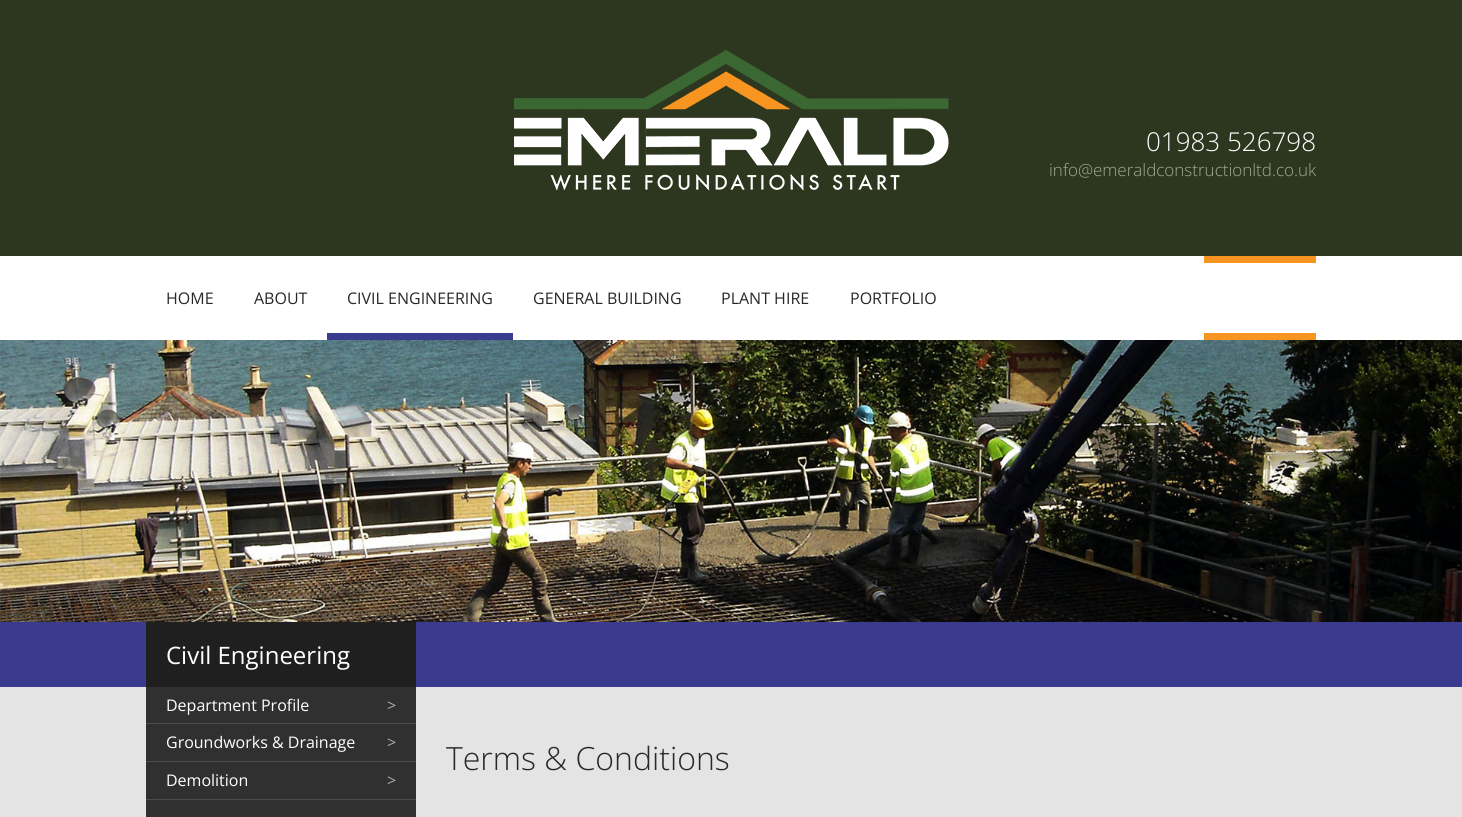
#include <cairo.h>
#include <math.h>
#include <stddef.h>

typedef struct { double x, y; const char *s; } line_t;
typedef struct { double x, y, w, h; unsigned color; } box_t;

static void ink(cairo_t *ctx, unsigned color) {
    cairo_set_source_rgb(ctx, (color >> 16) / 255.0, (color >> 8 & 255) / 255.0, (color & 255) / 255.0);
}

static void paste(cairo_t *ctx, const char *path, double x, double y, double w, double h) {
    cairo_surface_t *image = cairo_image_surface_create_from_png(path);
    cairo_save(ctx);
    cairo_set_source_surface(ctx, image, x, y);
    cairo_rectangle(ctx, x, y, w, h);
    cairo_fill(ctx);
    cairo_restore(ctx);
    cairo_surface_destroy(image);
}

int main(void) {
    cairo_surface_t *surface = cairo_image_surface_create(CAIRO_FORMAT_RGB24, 1462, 817);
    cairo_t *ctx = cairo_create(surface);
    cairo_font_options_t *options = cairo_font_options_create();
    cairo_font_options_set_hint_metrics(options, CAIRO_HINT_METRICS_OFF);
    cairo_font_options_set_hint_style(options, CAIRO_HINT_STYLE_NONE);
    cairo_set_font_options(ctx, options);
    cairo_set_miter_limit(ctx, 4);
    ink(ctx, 0xFFFFFF);
    cairo_paint(ctx);
    ink(ctx, 0x2D371F);
    cairo_rectangle(ctx, 0, 0, 1462, 256);
    cairo_fill(ctx);
    paste(ctx, "media/1.png", 514, 50, 435, 141);
    cairo_select_font_face(ctx, "Open Sans Light", CAIRO_FONT_SLANT_NORMAL, CAIRO_FONT_WEIGHT_NORMAL);
    cairo_set_font_size(ctx, 26);
    ink(ctx, 0xFFFFFF);
    cairo_move_to(ctx, 1146, 151);
    cairo_show_text(ctx, "01983 526798");
    cairo_set_font_size(ctx, 17);
    ink(ctx, 0xA1AC91);
    cairo_move_to(ctx, 1049, 176);
    cairo_show_text(ctx, "info@emeraldconstructionltd.co.uk");
    cairo_select_font_face(ctx, "Open Sans", CAIRO_FONT_SLANT_NORMAL, CAIRO_FONT_WEIGHT_NORMAL);
    cairo_set_font_size(ctx, 16);
    ink(ctx, 0x282828);
    cairo_move_to(ctx, 166, 304);
    cairo_show_text(ctx, "HOME");
    cairo_move_to(ctx, 254, 304);
    cairo_show_text(ctx, "ABOUT");
    ink(ctx, 0x3A3A8E);
    cairo_rectangle(ctx, 327, 333, 186, 7);
    cairo_fill(ctx);
    ink(ctx, 0x282828);
    {
        static const line_t items[] = {
            {347, 304, "CIVIL ENGINEERING"},
            {533, 304, "GENERAL BUILDING"},
            {721, 304, "PLANT HIRE"},
            {850, 304, "PORTFOLIO"},
        };
        for (size_t i = 0; i < sizeof items / sizeof *items; i++) {
            cairo_move_to(ctx, items[i].x, items[i].y);
            cairo_show_text(ctx, items[i].s);
        }
    }
    {
        static const box_t items[] = {
            {1204, 256, 112, 7, 0xF89520},
            {1204, 333, 112, 7, 0xF89520},
            {0, 622, 1462, 65, 0x3A3A8E},
        };
        for (size_t i = 0; i < sizeof items / sizeof *items; i++) {
            ink(ctx, items[i].color);
            cairo_rectangle(ctx, items[i].x, items[i].y, items[i].w, items[i].h);
            cairo_fill(ctx);
        }
    }
    paste(ctx, "media/2.png", 0, 340, 1462, 282);
    {
        static const box_t items[] = {
            {0, 687, 1462, 130, 0xE4E4E4},
            {146, 687, 270, 130, 0x303030},
            {146, 622, 270, 65, 0x1F1F1F},
        };
        for (size_t i = 0; i < sizeof items / sizeof *items; i++) {
            ink(ctx, items[i].color);
            cairo_rectangle(ctx, items[i].x, items[i].y, items[i].w, items[i].h);
            cairo_fill(ctx);
        }
    }
    cairo_set_font_size(ctx, 24);
    ink(ctx, 0xFFFFFF);
    cairo_move_to(ctx, 166, 664);
    cairo_show_text(ctx, "Civil Engineering");
    ink(ctx, 0x4D4D4D);
    cairo_rectangle(ctx, 146, 723, 270, 1);
    cairo_fill(ctx);
    cairo_set_font_size(ctx, 16);
    ink(ctx, 0xFFFFFF);
    cairo_move_to(ctx, 166, 711);
    cairo_show_text(ctx, "Department Profile");
    ink(ctx, 0xAFAFAF);
    cairo_move_to(ctx, 387, 711);
    cairo_show_text(ctx, ">");
    ink(ctx, 0x4D4D4D);
    cairo_rectangle(ctx, 146, 761, 270, 1);
    cairo_fill(ctx);
    ink(ctx, 0xFFFFFF);
    cairo_move_to(ctx, 166, 748);
    cairo_show_text(ctx, "Groundworks & Drainage");
    ink(ctx, 0xAFAFAF);
    cairo_move_to(ctx, 387, 748);
    cairo_show_text(ctx, ">");
    ink(ctx, 0x4D4D4D);
    cairo_rectangle(ctx, 146, 799, 270, 1);
    cairo_fill(ctx);
    ink(ctx, 0xFFFFFF);
    cairo_move_to(ctx, 166, 786);
    cairo_show_text(ctx, "Demolition");
    ink(ctx, 0xAFAFAF);
    cairo_move_to(ctx, 387, 786);
    cairo_show_text(ctx, ">");
    cairo_select_font_face(ctx, "Open Sans Light", CAIRO_FONT_SLANT_NORMAL, CAIRO_FONT_WEIGHT_NORMAL);
    cairo_set_font_size(ctx, 32);
    ink(ctx, 0x282828);
    cairo_move_to(ctx, 446, 770);
    cairo_show_text(ctx, "Terms & Conditions");
    cairo_surface_write_to_png(surface, "image.png");
    cairo_font_options_destroy(options);
    cairo_destroy(ctx);
    cairo_surface_destroy(surface);
    return 0;
}
